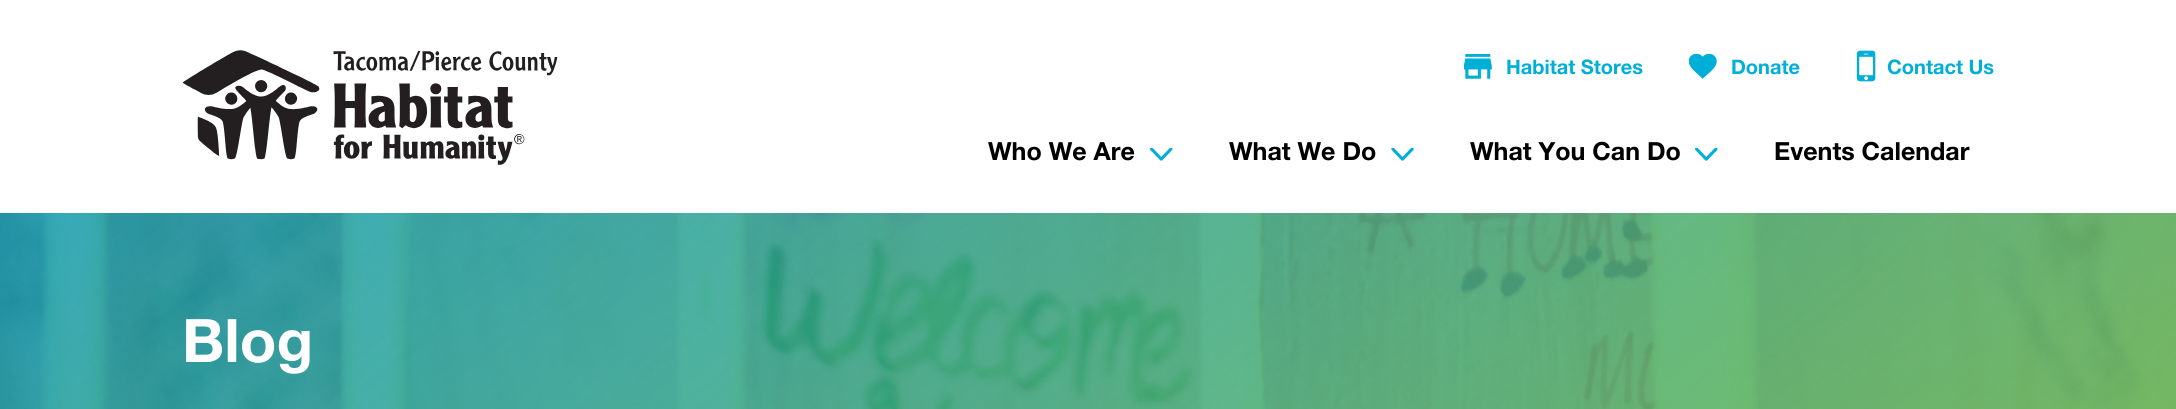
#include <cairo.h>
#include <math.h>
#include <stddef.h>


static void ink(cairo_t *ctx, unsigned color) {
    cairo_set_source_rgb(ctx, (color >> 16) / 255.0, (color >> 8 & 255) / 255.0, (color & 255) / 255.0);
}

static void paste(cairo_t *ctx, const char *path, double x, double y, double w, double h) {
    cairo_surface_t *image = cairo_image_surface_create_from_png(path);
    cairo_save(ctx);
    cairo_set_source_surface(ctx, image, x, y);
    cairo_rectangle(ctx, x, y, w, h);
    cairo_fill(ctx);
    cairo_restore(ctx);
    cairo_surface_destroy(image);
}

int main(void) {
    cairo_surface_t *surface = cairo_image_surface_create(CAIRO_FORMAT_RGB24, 2176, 409);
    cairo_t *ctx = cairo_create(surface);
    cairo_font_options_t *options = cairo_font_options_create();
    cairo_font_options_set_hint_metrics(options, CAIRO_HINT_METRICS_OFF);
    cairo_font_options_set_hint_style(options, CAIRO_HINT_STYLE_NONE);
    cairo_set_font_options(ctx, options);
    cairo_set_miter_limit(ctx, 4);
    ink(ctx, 0xFFFFFF);
    cairo_paint(ctx);
    paste(ctx, "media/1.png", 183, 50, 375, 115);
    paste(ctx, "media/2.png", 1464, 54, 28, 25);
    cairo_select_font_face(ctx, "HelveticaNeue", CAIRO_FONT_SLANT_NORMAL, CAIRO_FONT_WEIGHT_NORMAL);
    cairo_set_font_size(ctx, 20);
    ink(ctx, 0x00AFD7);
    cairo_move_to(ctx, 1506, 74);
    cairo_show_text(ctx, "Habitat Stores");
    paste(ctx, "media/3.png", 1689, 54, 28, 25);
    cairo_move_to(ctx, 1731, 74);
    cairo_show_text(ctx, "Donate");
    paste(ctx, "media/4.png", 1856, 50, 20, 32);
    cairo_move_to(ctx, 1887, 74);
    cairo_show_text(ctx, "Contact Us");
    cairo_set_font_size(ctx, 25);
    ink(ctx, 0x000000);
    cairo_move_to(ctx, 988, 160);
    cairo_show_text(ctx, "Who We Are");
    paste(ctx, "media/5.png", 1150, 148, 23, 13);
    cairo_move_to(ctx, 1229, 160);
    cairo_show_text(ctx, "What We Do");
    paste(ctx, "media/6.png", 1391, 148, 23, 13);
    cairo_move_to(ctx, 1470, 160);
    cairo_show_text(ctx, "What You Can Do");
    paste(ctx, "media/5.png", 1695, 148, 23, 13);
    cairo_move_to(ctx, 1774, 160);
    cairo_show_text(ctx, "Events Calendar");
    paste(ctx, "media/7.png", 0, 213, 2176, 196);
    cairo_set_font_size(ctx, 60);
    ink(ctx, 0xFFFFFF);
    cairo_move_to(ctx, 182, 362);
    cairo_show_text(ctx, "Blog");
    cairo_surface_write_to_png(surface, "image.png");
    cairo_font_options_destroy(options);
    cairo_destroy(ctx);
    cairo_surface_destroy(surface);
    return 0;
}
